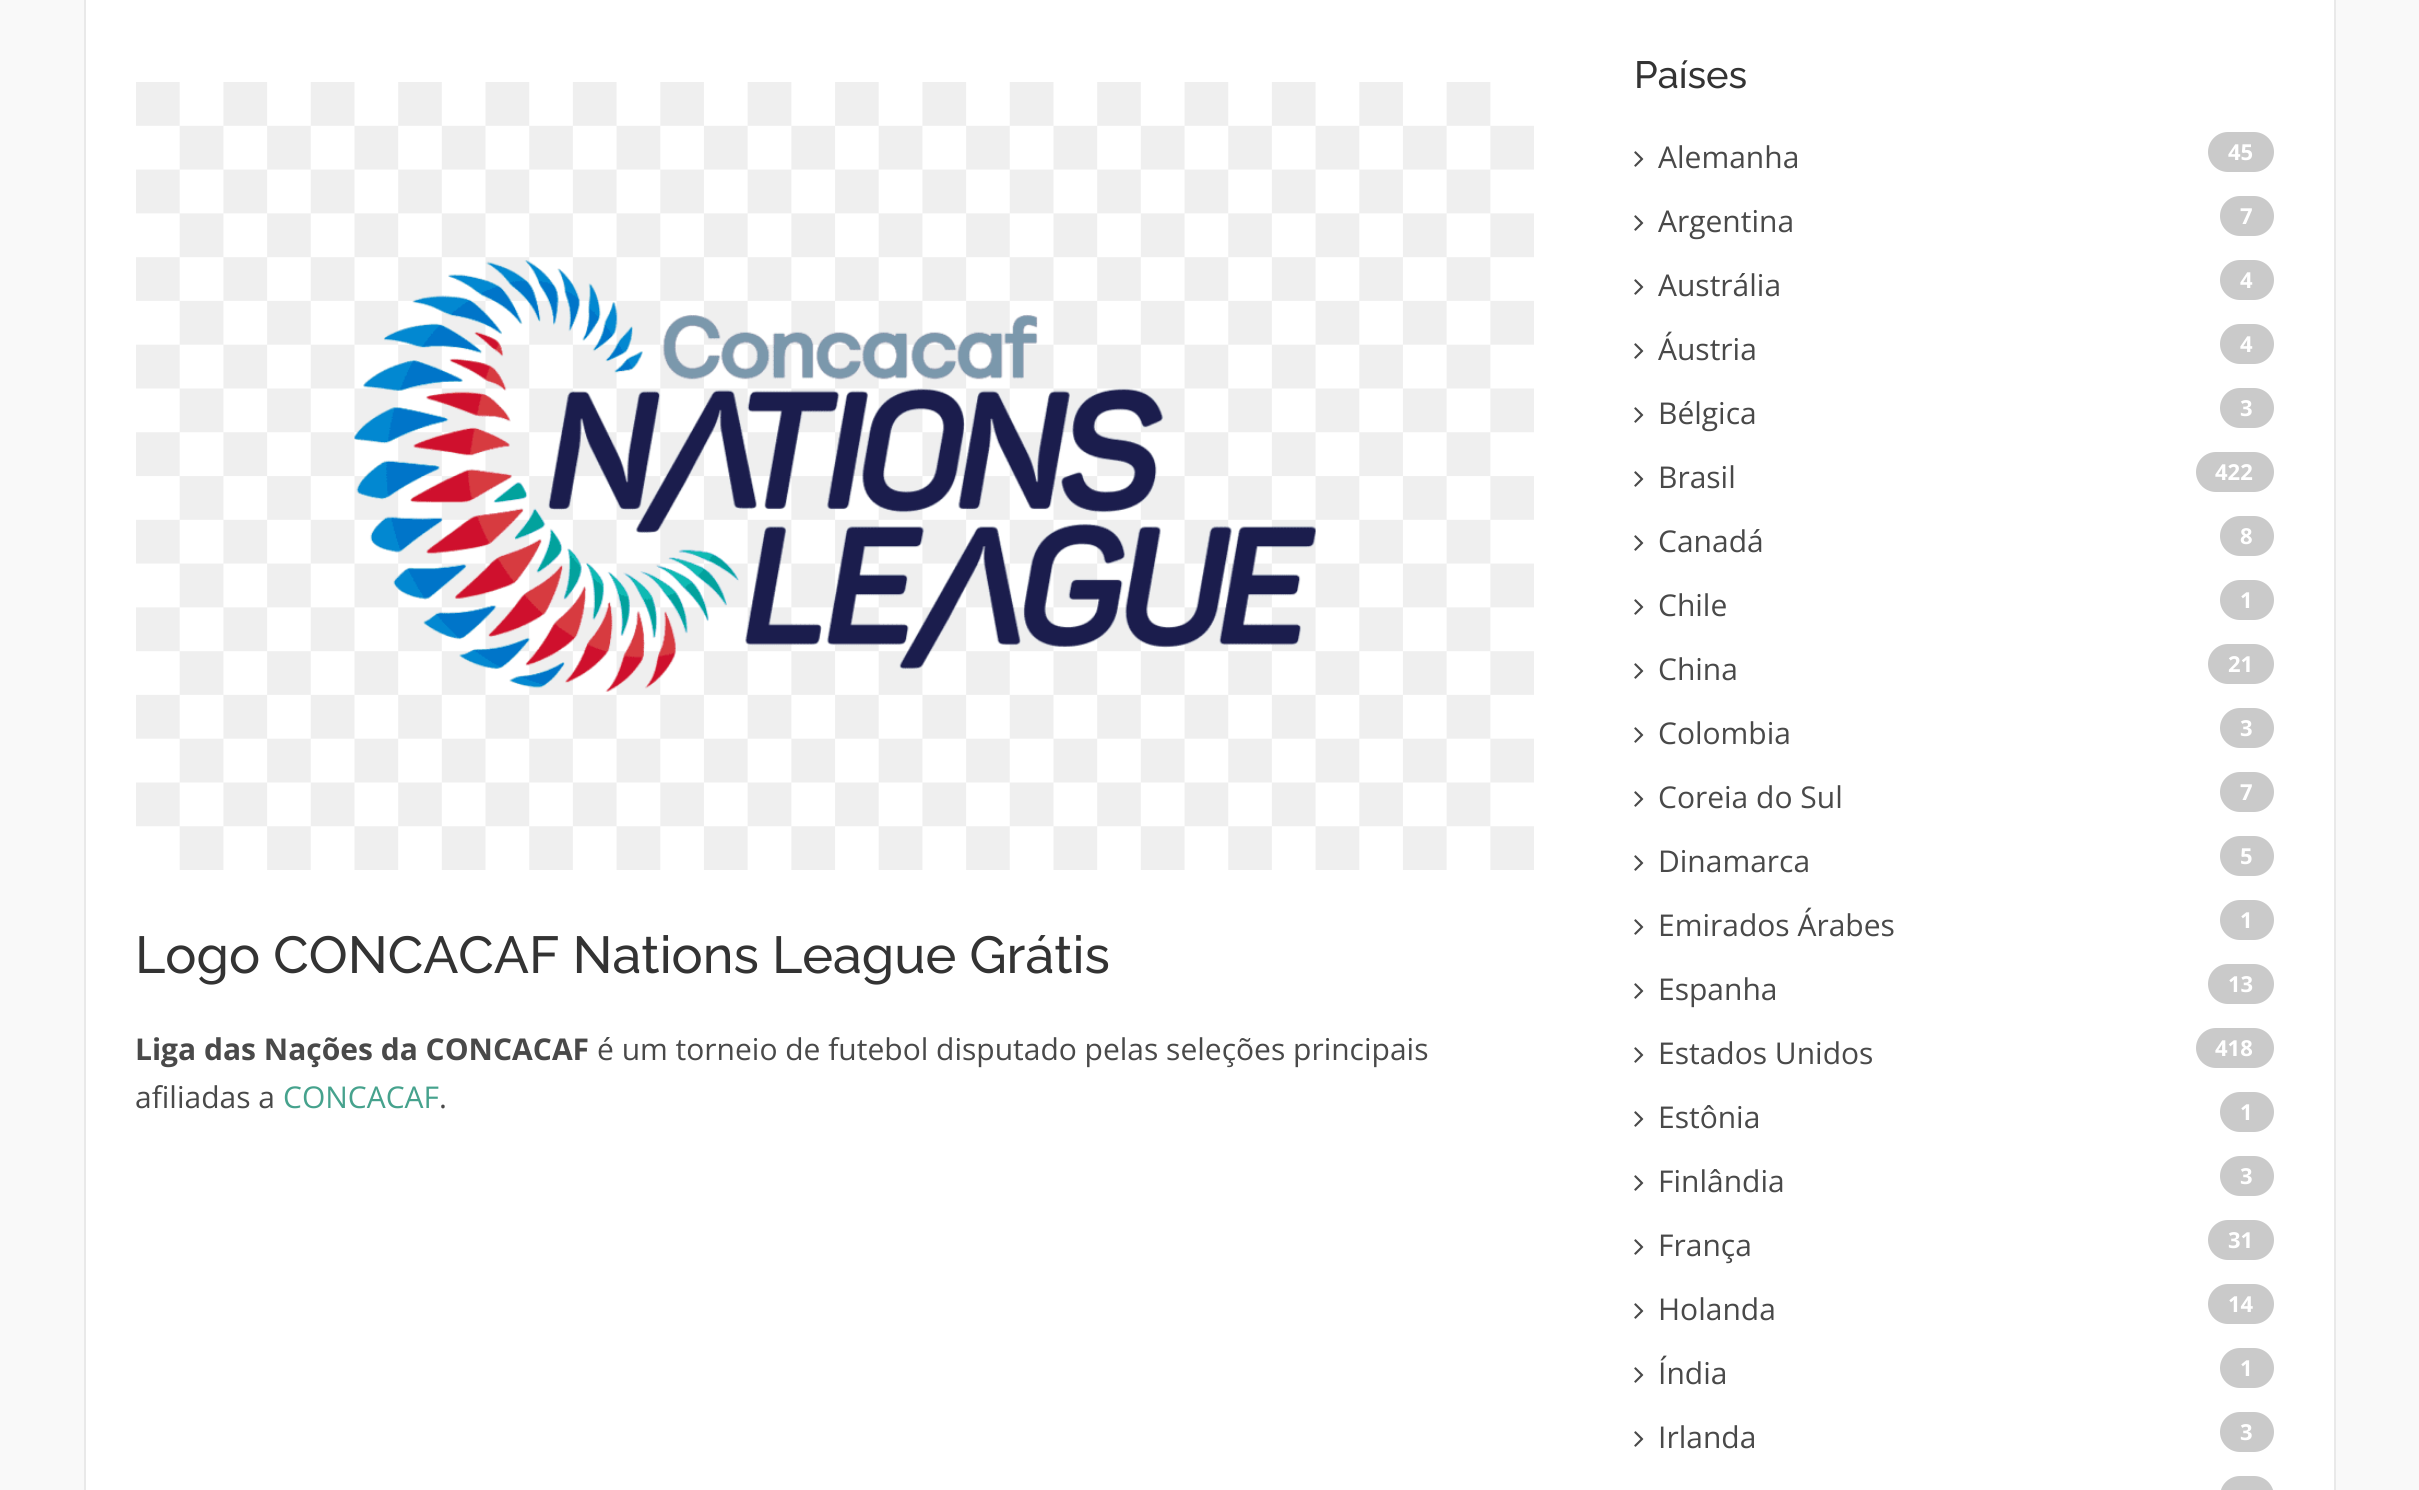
#include <cairo.h>
#include <math.h>
#include <stddef.h>


static void ink(cairo_t *ctx, unsigned color) {
    cairo_set_source_rgb(ctx, (color >> 16) / 255.0, (color >> 8 & 255) / 255.0, (color & 255) / 255.0);
}

static void round_path(cairo_t *ctx, double x, double y, double w, double h, double r) {
    cairo_new_sub_path(ctx);
    cairo_arc(ctx, x + w - r, y + h - r, r, 0, M_PI / 2);
    cairo_arc(ctx, x + r, y + h - r, r, M_PI / 2, M_PI);
    cairo_arc(ctx, x + r, y + r, r, M_PI, 1.5 * M_PI);
    cairo_arc(ctx, x + w - r, y + r, r, 1.5 * M_PI, 2 * M_PI);
    cairo_close_path(ctx);
}

static void paste(cairo_t *ctx, const char *path, double x, double y, double w, double h) {
    cairo_surface_t *image = cairo_image_surface_create_from_png(path);
    cairo_save(ctx);
    cairo_set_source_surface(ctx, image, x, y);
    cairo_rectangle(ctx, x, y, w, h);
    cairo_fill(ctx);
    cairo_restore(ctx);
    cairo_surface_destroy(image);
}

int main(void) {
    cairo_surface_t *surface = cairo_image_surface_create(CAIRO_FORMAT_RGB24, 2419, 1490);
    cairo_t *ctx = cairo_create(surface);
    cairo_font_options_t *options = cairo_font_options_create();
    cairo_font_options_set_hint_metrics(options, CAIRO_HINT_METRICS_OFF);
    cairo_font_options_set_hint_style(options, CAIRO_HINT_STYLE_NONE);
    cairo_set_font_options(ctx, options);
    cairo_set_miter_limit(ctx, 4);
    ink(ctx, 0xF9F9F9);
    cairo_paint(ctx);
    ink(ctx, 0xFFFFFF);
    cairo_rectangle(ctx, 85, -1, 2250, 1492);
    cairo_fill_preserve(ctx);
    ink(ctx, 0xE9E9E9);
    cairo_stroke(ctx);
    paste(ctx, "media/1.png", 136, 82, 1398, 788);
    cairo_select_font_face(ctx, "Raleway Medium", CAIRO_FONT_SLANT_NORMAL, CAIRO_FONT_WEIGHT_NORMAL);
    cairo_set_font_size(ctx, 52);
    ink(ctx, 0x333333);
    cairo_move_to(ctx, 135, 973);
    cairo_show_text(ctx, "Logo CONCACAF Nations League Grátis");
    cairo_select_font_face(ctx, "Open Sans", CAIRO_FONT_SLANT_NORMAL, CAIRO_FONT_WEIGHT_BOLD);
    cairo_set_font_size(ctx, 30);
    ink(ctx, 0x494949);
    cairo_move_to(ctx, 135, 1060);
    cairo_show_text(ctx, "Liga das Nações da CONCACAF");
    cairo_select_font_face(ctx, "Open Sans", CAIRO_FONT_SLANT_NORMAL, CAIRO_FONT_WEIGHT_NORMAL);
    cairo_move_to(ctx, 597, 1060);
    cairo_show_text(ctx, "é um torneio de futebol disputado pelas seleções principais");
    cairo_move_to(ctx, 135, 1108);
    cairo_show_text(ctx, "afiliadas a");
    ink(ctx, 0x46A28D);
    cairo_move_to(ctx, 283, 1108);
    cairo_show_text(ctx, "CONCACAF");
    ink(ctx, 0x494949);
    cairo_move_to(ctx, 439, 1108);
    cairo_show_text(ctx, ".");
    cairo_select_font_face(ctx, "Raleway Medium", CAIRO_FONT_SLANT_NORMAL, CAIRO_FONT_WEIGHT_NORMAL);
    cairo_set_font_size(ctx, 38);
    ink(ctx, 0x333333);
    cairo_move_to(ctx, 1634, 88);
    cairo_show_text(ctx, "Países");
    paste(ctx, "media/2.png", 1634, 151, 10, 16);
    cairo_select_font_face(ctx, "Open Sans", CAIRO_FONT_SLANT_NORMAL, CAIRO_FONT_WEIGHT_NORMAL);
    cairo_set_font_size(ctx, 30);
    ink(ctx, 0x494949);
    cairo_move_to(ctx, 1658, 168);
    cairo_show_text(ctx, "Alemanha");
    ink(ctx, 0xCACACA);
    round_path(ctx, 2208, 132, 66, 40, 20);
    cairo_fill(ctx);
    cairo_select_font_face(ctx, "Open Sans", CAIRO_FONT_SLANT_NORMAL, CAIRO_FONT_WEIGHT_BOLD);
    cairo_set_font_size(ctx, 22);
    ink(ctx, 0xFFFFFF);
    cairo_move_to(ctx, 2228, 160);
    cairo_show_text(ctx, "45");
    paste(ctx, "media/2.png", 1634, 215, 10, 16);
    cairo_select_font_face(ctx, "Open Sans", CAIRO_FONT_SLANT_NORMAL, CAIRO_FONT_WEIGHT_NORMAL);
    cairo_set_font_size(ctx, 30);
    ink(ctx, 0x494949);
    cairo_move_to(ctx, 1658, 232);
    cairo_show_text(ctx, "Argentina");
    ink(ctx, 0xCACACA);
    round_path(ctx, 2220, 196, 54, 40, 20);
    cairo_fill(ctx);
    cairo_select_font_face(ctx, "Open Sans", CAIRO_FONT_SLANT_NORMAL, CAIRO_FONT_WEIGHT_BOLD);
    cairo_set_font_size(ctx, 22);
    ink(ctx, 0xFFFFFF);
    cairo_move_to(ctx, 2240, 224);
    cairo_show_text(ctx, "7");
    paste(ctx, "media/2.png", 1634, 279, 10, 16);
    cairo_select_font_face(ctx, "Open Sans", CAIRO_FONT_SLANT_NORMAL, CAIRO_FONT_WEIGHT_NORMAL);
    cairo_set_font_size(ctx, 30);
    ink(ctx, 0x494949);
    cairo_move_to(ctx, 1658, 296);
    cairo_show_text(ctx, "Austrália");
    ink(ctx, 0xCACACA);
    round_path(ctx, 2220, 260, 54, 40, 20);
    cairo_fill(ctx);
    cairo_select_font_face(ctx, "Open Sans", CAIRO_FONT_SLANT_NORMAL, CAIRO_FONT_WEIGHT_BOLD);
    cairo_set_font_size(ctx, 22);
    ink(ctx, 0xFFFFFF);
    cairo_move_to(ctx, 2240, 288);
    cairo_show_text(ctx, "4");
    paste(ctx, "media/2.png", 1634, 343, 10, 16);
    cairo_select_font_face(ctx, "Open Sans", CAIRO_FONT_SLANT_NORMAL, CAIRO_FONT_WEIGHT_NORMAL);
    cairo_set_font_size(ctx, 30);
    ink(ctx, 0x494949);
    cairo_move_to(ctx, 1658, 360);
    cairo_show_text(ctx, "Áustria");
    ink(ctx, 0xCACACA);
    round_path(ctx, 2220, 324, 54, 40, 20);
    cairo_fill(ctx);
    cairo_select_font_face(ctx, "Open Sans", CAIRO_FONT_SLANT_NORMAL, CAIRO_FONT_WEIGHT_BOLD);
    cairo_set_font_size(ctx, 22);
    ink(ctx, 0xFFFFFF);
    cairo_move_to(ctx, 2240, 352);
    cairo_show_text(ctx, "4");
    paste(ctx, "media/2.png", 1634, 407, 10, 16);
    cairo_select_font_face(ctx, "Open Sans", CAIRO_FONT_SLANT_NORMAL, CAIRO_FONT_WEIGHT_NORMAL);
    cairo_set_font_size(ctx, 30);
    ink(ctx, 0x494949);
    cairo_move_to(ctx, 1658, 424);
    cairo_show_text(ctx, "Bélgica");
    ink(ctx, 0xCACACA);
    round_path(ctx, 2220, 388, 54, 40, 20);
    cairo_fill(ctx);
    cairo_select_font_face(ctx, "Open Sans", CAIRO_FONT_SLANT_NORMAL, CAIRO_FONT_WEIGHT_BOLD);
    cairo_set_font_size(ctx, 22);
    ink(ctx, 0xFFFFFF);
    cairo_move_to(ctx, 2240, 416);
    cairo_show_text(ctx, "3");
    paste(ctx, "media/2.png", 1634, 471, 10, 16);
    cairo_select_font_face(ctx, "Open Sans", CAIRO_FONT_SLANT_NORMAL, CAIRO_FONT_WEIGHT_NORMAL);
    cairo_set_font_size(ctx, 30);
    ink(ctx, 0x494949);
    cairo_move_to(ctx, 1658, 488);
    cairo_show_text(ctx, "Brasil");
    ink(ctx, 0xCACACA);
    round_path(ctx, 2196, 452, 78, 40, 20);
    cairo_fill(ctx);
    cairo_select_font_face(ctx, "Open Sans", CAIRO_FONT_SLANT_NORMAL, CAIRO_FONT_WEIGHT_BOLD);
    cairo_set_font_size(ctx, 22);
    ink(ctx, 0xFFFFFF);
    cairo_move_to(ctx, 2215, 480);
    cairo_show_text(ctx, "422");
    paste(ctx, "media/2.png", 1634, 535, 10, 16);
    cairo_select_font_face(ctx, "Open Sans", CAIRO_FONT_SLANT_NORMAL, CAIRO_FONT_WEIGHT_NORMAL);
    cairo_set_font_size(ctx, 30);
    ink(ctx, 0x494949);
    cairo_move_to(ctx, 1658, 552);
    cairo_show_text(ctx, "Canadá");
    ink(ctx, 0xCACACA);
    round_path(ctx, 2220, 516, 54, 40, 20);
    cairo_fill(ctx);
    cairo_select_font_face(ctx, "Open Sans", CAIRO_FONT_SLANT_NORMAL, CAIRO_FONT_WEIGHT_BOLD);
    cairo_set_font_size(ctx, 22);
    ink(ctx, 0xFFFFFF);
    cairo_move_to(ctx, 2240, 544);
    cairo_show_text(ctx, "8");
    paste(ctx, "media/2.png", 1634, 599, 10, 16);
    cairo_select_font_face(ctx, "Open Sans", CAIRO_FONT_SLANT_NORMAL, CAIRO_FONT_WEIGHT_NORMAL);
    cairo_set_font_size(ctx, 30);
    ink(ctx, 0x494949);
    cairo_move_to(ctx, 1658, 616);
    cairo_show_text(ctx, "Chile");
    ink(ctx, 0xCACACA);
    round_path(ctx, 2220, 580, 54, 40, 20);
    cairo_fill(ctx);
    cairo_select_font_face(ctx, "Open Sans", CAIRO_FONT_SLANT_NORMAL, CAIRO_FONT_WEIGHT_BOLD);
    cairo_set_font_size(ctx, 22);
    ink(ctx, 0xFFFFFF);
    cairo_move_to(ctx, 2240, 608);
    cairo_show_text(ctx, "1");
    paste(ctx, "media/2.png", 1634, 663, 10, 16);
    cairo_select_font_face(ctx, "Open Sans", CAIRO_FONT_SLANT_NORMAL, CAIRO_FONT_WEIGHT_NORMAL);
    cairo_set_font_size(ctx, 30);
    ink(ctx, 0x494949);
    cairo_move_to(ctx, 1658, 680);
    cairo_show_text(ctx, "China");
    ink(ctx, 0xCACACA);
    round_path(ctx, 2208, 644, 66, 40, 20);
    cairo_fill(ctx);
    cairo_select_font_face(ctx, "Open Sans", CAIRO_FONT_SLANT_NORMAL, CAIRO_FONT_WEIGHT_BOLD);
    cairo_set_font_size(ctx, 22);
    ink(ctx, 0xFFFFFF);
    cairo_move_to(ctx, 2228, 672);
    cairo_show_text(ctx, "21");
    paste(ctx, "media/2.png", 1634, 727, 10, 16);
    cairo_select_font_face(ctx, "Open Sans", CAIRO_FONT_SLANT_NORMAL, CAIRO_FONT_WEIGHT_NORMAL);
    cairo_set_font_size(ctx, 30);
    ink(ctx, 0x494949);
    cairo_move_to(ctx, 1658, 744);
    cairo_show_text(ctx, "Colombia");
    ink(ctx, 0xCACACA);
    round_path(ctx, 2220, 708, 54, 40, 20);
    cairo_fill(ctx);
    cairo_select_font_face(ctx, "Open Sans", CAIRO_FONT_SLANT_NORMAL, CAIRO_FONT_WEIGHT_BOLD);
    cairo_set_font_size(ctx, 22);
    ink(ctx, 0xFFFFFF);
    cairo_move_to(ctx, 2240, 736);
    cairo_show_text(ctx, "3");
    paste(ctx, "media/2.png", 1634, 791, 10, 16);
    cairo_select_font_face(ctx, "Open Sans", CAIRO_FONT_SLANT_NORMAL, CAIRO_FONT_WEIGHT_NORMAL);
    cairo_set_font_size(ctx, 30);
    ink(ctx, 0x494949);
    cairo_move_to(ctx, 1658, 808);
    cairo_show_text(ctx, "Coreia do Sul");
    ink(ctx, 0xCACACA);
    round_path(ctx, 2220, 772, 54, 40, 20);
    cairo_fill(ctx);
    cairo_select_font_face(ctx, "Open Sans", CAIRO_FONT_SLANT_NORMAL, CAIRO_FONT_WEIGHT_BOLD);
    cairo_set_font_size(ctx, 22);
    ink(ctx, 0xFFFFFF);
    cairo_move_to(ctx, 2240, 800);
    cairo_show_text(ctx, "7");
    paste(ctx, "media/2.png", 1634, 855, 10, 16);
    cairo_select_font_face(ctx, "Open Sans", CAIRO_FONT_SLANT_NORMAL, CAIRO_FONT_WEIGHT_NORMAL);
    cairo_set_font_size(ctx, 30);
    ink(ctx, 0x494949);
    cairo_move_to(ctx, 1658, 872);
    cairo_show_text(ctx, "Dinamarca");
    ink(ctx, 0xCACACA);
    round_path(ctx, 2220, 836, 54, 40, 20);
    cairo_fill(ctx);
    cairo_select_font_face(ctx, "Open Sans", CAIRO_FONT_SLANT_NORMAL, CAIRO_FONT_WEIGHT_BOLD);
    cairo_set_font_size(ctx, 22);
    ink(ctx, 0xFFFFFF);
    cairo_move_to(ctx, 2240, 864);
    cairo_show_text(ctx, "5");
    paste(ctx, "media/2.png", 1634, 919, 10, 16);
    cairo_select_font_face(ctx, "Open Sans", CAIRO_FONT_SLANT_NORMAL, CAIRO_FONT_WEIGHT_NORMAL);
    cairo_set_font_size(ctx, 30);
    ink(ctx, 0x494949);
    cairo_move_to(ctx, 1658, 936);
    cairo_show_text(ctx, "Emirados Árabes");
    ink(ctx, 0xCACACA);
    round_path(ctx, 2220, 900, 54, 40, 20);
    cairo_fill(ctx);
    cairo_select_font_face(ctx, "Open Sans", CAIRO_FONT_SLANT_NORMAL, CAIRO_FONT_WEIGHT_BOLD);
    cairo_set_font_size(ctx, 22);
    ink(ctx, 0xFFFFFF);
    cairo_move_to(ctx, 2240, 928);
    cairo_show_text(ctx, "1");
    paste(ctx, "media/2.png", 1634, 983, 10, 16);
    cairo_select_font_face(ctx, "Open Sans", CAIRO_FONT_SLANT_NORMAL, CAIRO_FONT_WEIGHT_NORMAL);
    cairo_set_font_size(ctx, 30);
    ink(ctx, 0x494949);
    cairo_move_to(ctx, 1658, 1000);
    cairo_show_text(ctx, "Espanha");
    ink(ctx, 0xCACACA);
    round_path(ctx, 2208, 964, 66, 40, 20);
    cairo_fill(ctx);
    cairo_select_font_face(ctx, "Open Sans", CAIRO_FONT_SLANT_NORMAL, CAIRO_FONT_WEIGHT_BOLD);
    cairo_set_font_size(ctx, 22);
    ink(ctx, 0xFFFFFF);
    cairo_move_to(ctx, 2228, 992);
    cairo_show_text(ctx, "13");
    paste(ctx, "media/2.png", 1634, 1047, 10, 16);
    cairo_select_font_face(ctx, "Open Sans", CAIRO_FONT_SLANT_NORMAL, CAIRO_FONT_WEIGHT_NORMAL);
    cairo_set_font_size(ctx, 30);
    ink(ctx, 0x494949);
    cairo_move_to(ctx, 1658, 1064);
    cairo_show_text(ctx, "Estados Unidos");
    ink(ctx, 0xCACACA);
    round_path(ctx, 2196, 1028, 78, 40, 20);
    cairo_fill(ctx);
    cairo_select_font_face(ctx, "Open Sans", CAIRO_FONT_SLANT_NORMAL, CAIRO_FONT_WEIGHT_BOLD);
    cairo_set_font_size(ctx, 22);
    ink(ctx, 0xFFFFFF);
    cairo_move_to(ctx, 2215, 1056);
    cairo_show_text(ctx, "418");
    paste(ctx, "media/2.png", 1634, 1111, 10, 16);
    cairo_select_font_face(ctx, "Open Sans", CAIRO_FONT_SLANT_NORMAL, CAIRO_FONT_WEIGHT_NORMAL);
    cairo_set_font_size(ctx, 30);
    ink(ctx, 0x494949);
    cairo_move_to(ctx, 1658, 1128);
    cairo_show_text(ctx, "Estônia");
    ink(ctx, 0xCACACA);
    round_path(ctx, 2220, 1092, 54, 40, 20);
    cairo_fill(ctx);
    cairo_select_font_face(ctx, "Open Sans", CAIRO_FONT_SLANT_NORMAL, CAIRO_FONT_WEIGHT_BOLD);
    cairo_set_font_size(ctx, 22);
    ink(ctx, 0xFFFFFF);
    cairo_move_to(ctx, 2240, 1120);
    cairo_show_text(ctx, "1");
    paste(ctx, "media/2.png", 1634, 1175, 10, 16);
    cairo_select_font_face(ctx, "Open Sans", CAIRO_FONT_SLANT_NORMAL, CAIRO_FONT_WEIGHT_NORMAL);
    cairo_set_font_size(ctx, 30);
    ink(ctx, 0x494949);
    cairo_move_to(ctx, 1658, 1192);
    cairo_show_text(ctx, "Finlândia");
    ink(ctx, 0xCACACA);
    round_path(ctx, 2220, 1156, 54, 40, 20);
    cairo_fill(ctx);
    cairo_select_font_face(ctx, "Open Sans", CAIRO_FONT_SLANT_NORMAL, CAIRO_FONT_WEIGHT_BOLD);
    cairo_set_font_size(ctx, 22);
    ink(ctx, 0xFFFFFF);
    cairo_move_to(ctx, 2240, 1184);
    cairo_show_text(ctx, "3");
    paste(ctx, "media/2.png", 1634, 1239, 10, 16);
    cairo_select_font_face(ctx, "Open Sans", CAIRO_FONT_SLANT_NORMAL, CAIRO_FONT_WEIGHT_NORMAL);
    cairo_set_font_size(ctx, 30);
    ink(ctx, 0x494949);
    cairo_move_to(ctx, 1658, 1256);
    cairo_show_text(ctx, "França");
    ink(ctx, 0xCACACA);
    round_path(ctx, 2208, 1220, 66, 40, 20);
    cairo_fill(ctx);
    cairo_select_font_face(ctx, "Open Sans", CAIRO_FONT_SLANT_NORMAL, CAIRO_FONT_WEIGHT_BOLD);
    cairo_set_font_size(ctx, 22);
    ink(ctx, 0xFFFFFF);
    cairo_move_to(ctx, 2228, 1248);
    cairo_show_text(ctx, "31");
    paste(ctx, "media/2.png", 1634, 1303, 10, 16);
    cairo_select_font_face(ctx, "Open Sans", CAIRO_FONT_SLANT_NORMAL, CAIRO_FONT_WEIGHT_NORMAL);
    cairo_set_font_size(ctx, 30);
    ink(ctx, 0x494949);
    cairo_move_to(ctx, 1658, 1320);
    cairo_show_text(ctx, "Holanda");
    ink(ctx, 0xCACACA);
    round_path(ctx, 2208, 1284, 66, 40, 20);
    cairo_fill(ctx);
    cairo_select_font_face(ctx, "Open Sans", CAIRO_FONT_SLANT_NORMAL, CAIRO_FONT_WEIGHT_BOLD);
    cairo_set_font_size(ctx, 22);
    ink(ctx, 0xFFFFFF);
    cairo_move_to(ctx, 2228, 1312);
    cairo_show_text(ctx, "14");
    paste(ctx, "media/2.png", 1634, 1367, 10, 16);
    cairo_select_font_face(ctx, "Open Sans", CAIRO_FONT_SLANT_NORMAL, CAIRO_FONT_WEIGHT_NORMAL);
    cairo_set_font_size(ctx, 30);
    ink(ctx, 0x494949);
    cairo_move_to(ctx, 1658, 1384);
    cairo_show_text(ctx, "Índia");
    ink(ctx, 0xCACACA);
    round_path(ctx, 2220, 1348, 54, 40, 20);
    cairo_fill(ctx);
    cairo_select_font_face(ctx, "Open Sans", CAIRO_FONT_SLANT_NORMAL, CAIRO_FONT_WEIGHT_BOLD);
    cairo_set_font_size(ctx, 22);
    ink(ctx, 0xFFFFFF);
    cairo_move_to(ctx, 2240, 1376);
    cairo_show_text(ctx, "1");
    paste(ctx, "media/2.png", 1634, 1431, 10, 16);
    cairo_select_font_face(ctx, "Open Sans", CAIRO_FONT_SLANT_NORMAL, CAIRO_FONT_WEIGHT_NORMAL);
    cairo_set_font_size(ctx, 30);
    ink(ctx, 0x494949);
    cairo_move_to(ctx, 1658, 1448);
    cairo_show_text(ctx, "Irlanda");
    ink(ctx, 0xCACACA);
    round_path(ctx, 2220, 1412, 54, 40, 20);
    cairo_fill(ctx);
    cairo_select_font_face(ctx, "Open Sans", CAIRO_FONT_SLANT_NORMAL, CAIRO_FONT_WEIGHT_BOLD);
    cairo_set_font_size(ctx, 22);
    ink(ctx, 0xFFFFFF);
    cairo_move_to(ctx, 2240, 1440);
    cairo_show_text(ctx, "3");
    ink(ctx, 0xCACACA);
    round_path(ctx, 2220, 1476, 54, 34, 20);
    cairo_fill(ctx);
    cairo_surface_write_to_png(surface, "image.png");
    cairo_font_options_destroy(options);
    cairo_destroy(ctx);
    cairo_surface_destroy(surface);
    return 0;
}
